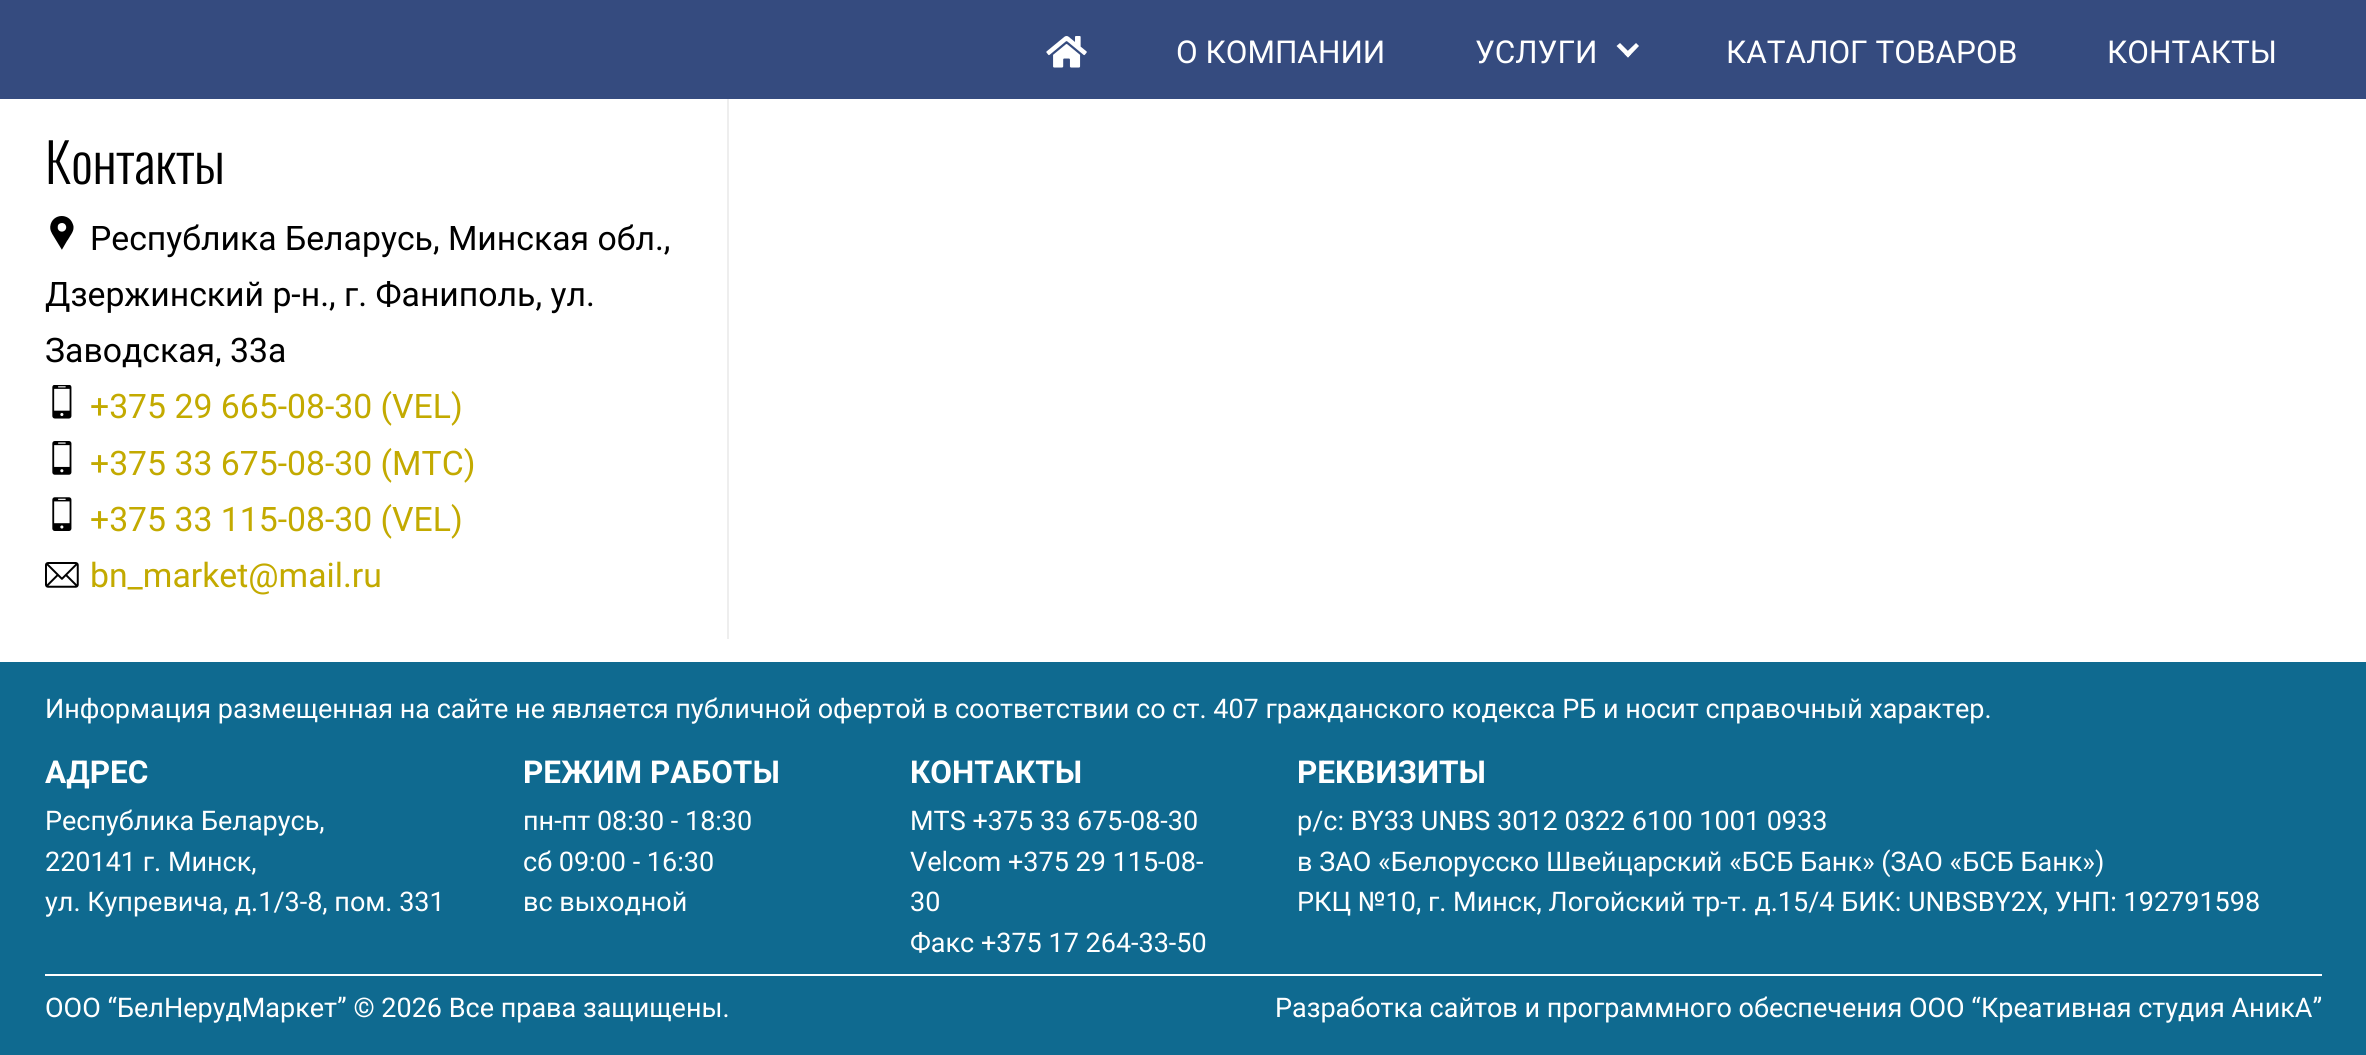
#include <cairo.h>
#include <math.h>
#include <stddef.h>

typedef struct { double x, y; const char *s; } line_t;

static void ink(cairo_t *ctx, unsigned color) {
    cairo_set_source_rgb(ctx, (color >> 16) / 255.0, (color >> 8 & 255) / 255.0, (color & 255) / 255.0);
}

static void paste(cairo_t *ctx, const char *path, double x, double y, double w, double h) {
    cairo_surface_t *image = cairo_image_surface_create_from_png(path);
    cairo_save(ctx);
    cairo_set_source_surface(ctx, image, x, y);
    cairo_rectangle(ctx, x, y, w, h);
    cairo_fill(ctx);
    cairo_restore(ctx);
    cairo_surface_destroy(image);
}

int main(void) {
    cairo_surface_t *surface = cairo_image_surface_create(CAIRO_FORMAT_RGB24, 2366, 1055);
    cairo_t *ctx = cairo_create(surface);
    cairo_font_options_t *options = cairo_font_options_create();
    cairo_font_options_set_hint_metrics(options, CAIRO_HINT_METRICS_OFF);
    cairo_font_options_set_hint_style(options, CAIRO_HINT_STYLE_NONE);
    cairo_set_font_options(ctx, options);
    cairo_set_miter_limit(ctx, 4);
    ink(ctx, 0xFFFFFF);
    cairo_paint(ctx);
    ink(ctx, 0x354B7F);
    cairo_rectangle(ctx, 0, 0, 2366, 99);
    cairo_fill(ctx);
    paste(ctx, "media/1.png", 1046, 36, 41, 32);
    cairo_select_font_face(ctx, "Roboto", CAIRO_FONT_SLANT_NORMAL, CAIRO_FONT_WEIGHT_NORMAL);
    cairo_set_font_size(ctx, 31.5);
    ink(ctx, 0xFFFFFF);
    cairo_move_to(ctx, 1176, 63);
    cairo_show_text(ctx, "О КОМПАНИИ");
    cairo_move_to(ctx, 1475, 63);
    cairo_show_text(ctx, "УСЛУГИ");
    cairo_new_path(ctx);
    cairo_move_to(ctx, 1636, 43);
    cairo_line_to(ctx, 1639, 46);
    cairo_line_to(ctx, 1628, 57.5);
    cairo_line_to(ctx, 1624.5, 54);
    cairo_close_path(ctx);
    cairo_fill(ctx);
    cairo_new_path(ctx);
    cairo_move_to(ctx, 1620, 43);
    cairo_line_to(ctx, 1631, 54);
    cairo_line_to(ctx, 1628, 57.5);
    cairo_line_to(ctx, 1616.5, 46);
    cairo_close_path(ctx);
    cairo_fill(ctx);
    cairo_move_to(ctx, 1726, 63);
    cairo_show_text(ctx, "КАТАЛОГ ТОВАРОВ");
    cairo_move_to(ctx, 2107, 63);
    cairo_show_text(ctx, "КОНТАКТЫ");
    ink(ctx, 0xEEEEEE);
    cairo_rectangle(ctx, 727, 99, 2, 540);
    cairo_fill(ctx);
    cairo_select_font_face(ctx, "Oswald Light", CAIRO_FONT_SLANT_NORMAL, CAIRO_FONT_WEIGHT_NORMAL);
    cairo_set_font_size(ctx, 54);
    ink(ctx, 0x000000);
    cairo_move_to(ctx, 45, 184);
    cairo_show_text(ctx, "Контакты");
    paste(ctx, "media/2.png", 50, 216, 24, 34);
    cairo_select_font_face(ctx, "Roboto", CAIRO_FONT_SLANT_NORMAL, CAIRO_FONT_WEIGHT_NORMAL);
    cairo_set_font_size(ctx, 33.75);
    {
        static const line_t items[] = {
            {90, 250, "Республика Беларусь, Минская обл.,"},
            {45, 306, "Дзержинский р-н., г. Фаниполь, ул."},
            {45, 362, "Заводская, 33а"},
        };
        for (size_t i = 0; i < sizeof items / sizeof *items; i++) {
            cairo_move_to(ctx, items[i].x, items[i].y);
            cairo_show_text(ctx, items[i].s);
        }
    }
    paste(ctx, "media/3.png", 52, 385, 20, 34);
    ink(ctx, 0xC3AA00);
    cairo_move_to(ctx, 90, 418);
    cairo_show_text(ctx, "+375 29 665-08-30 (VEL)");
    paste(ctx, "media/4.png", 52, 441, 20, 34);
    cairo_move_to(ctx, 90, 475);
    cairo_show_text(ctx, "+375 33 675-08-30 (МТС)");
    paste(ctx, "media/5.png", 52, 497, 20, 34);
    cairo_move_to(ctx, 90, 531);
    cairo_show_text(ctx, "+375 33 115-08-30 (VEL)");
    paste(ctx, "media/6.png", 45, 562, 34, 26);
    cairo_move_to(ctx, 90, 587);
    cairo_show_text(ctx, "bn_market@mail.ru");
    ink(ctx, 0x0F6A90);
    cairo_rectangle(ctx, 0, 662, 2366, 393);
    cairo_fill(ctx);
    cairo_set_font_size(ctx, 27);
    ink(ctx, 0xFFFFFF);
    cairo_move_to(ctx, 45, 718);
    cairo_show_text(ctx, "Информация размещенная на сайте не является публичной офертой в соответствии со ст. 407 гражданского кодекса РБ и носит справочный характер.");
    cairo_select_font_face(ctx, "Roboto", CAIRO_FONT_SLANT_NORMAL, CAIRO_FONT_WEIGHT_BOLD);
    cairo_set_font_size(ctx, 31.5);
    cairo_move_to(ctx, 45, 783);
    cairo_show_text(ctx, "АДРЕС");
    cairo_select_font_face(ctx, "Roboto", CAIRO_FONT_SLANT_NORMAL, CAIRO_FONT_WEIGHT_NORMAL);
    cairo_set_font_size(ctx, 27);
    {
        static const line_t items[] = {
            {45, 830, "Республика Беларусь,"},
            {45, 871, "220141 г. Минск,"},
            {45, 911, "ул. Купревича, д.1/3-8, пом. 331"},
        };
        for (size_t i = 0; i < sizeof items / sizeof *items; i++) {
            cairo_move_to(ctx, items[i].x, items[i].y);
            cairo_show_text(ctx, items[i].s);
        }
    }
    cairo_select_font_face(ctx, "Roboto", CAIRO_FONT_SLANT_NORMAL, CAIRO_FONT_WEIGHT_BOLD);
    cairo_set_font_size(ctx, 31.5);
    cairo_move_to(ctx, 523, 783);
    cairo_show_text(ctx, "РЕЖИМ РАБОТЫ");
    cairo_select_font_face(ctx, "Roboto", CAIRO_FONT_SLANT_NORMAL, CAIRO_FONT_WEIGHT_NORMAL);
    cairo_set_font_size(ctx, 27);
    {
        static const line_t items[] = {
            {523, 830, "пн-пт 08:30 - 18:30"},
            {523, 871, "сб 09:00 - 16:30"},
            {523, 911, "вс выходной"},
        };
        for (size_t i = 0; i < sizeof items / sizeof *items; i++) {
            cairo_move_to(ctx, items[i].x, items[i].y);
            cairo_show_text(ctx, items[i].s);
        }
    }
    cairo_select_font_face(ctx, "Roboto", CAIRO_FONT_SLANT_NORMAL, CAIRO_FONT_WEIGHT_BOLD);
    cairo_set_font_size(ctx, 31.5);
    cairo_move_to(ctx, 910, 783);
    cairo_show_text(ctx, "КОНТАКТЫ");
    cairo_select_font_face(ctx, "Roboto", CAIRO_FONT_SLANT_NORMAL, CAIRO_FONT_WEIGHT_NORMAL);
    cairo_set_font_size(ctx, 27);
    {
        static const line_t items[] = {
            {910, 830, "MTS +375 33 675-08-30"},
            {910, 871, "Velcom +375 29 115-08-"},
            {910, 911, "30"},
            {910, 952, "Факс +375 17 264-33-50"},
        };
        for (size_t i = 0; i < sizeof items / sizeof *items; i++) {
            cairo_move_to(ctx, items[i].x, items[i].y);
            cairo_show_text(ctx, items[i].s);
        }
    }
    cairo_select_font_face(ctx, "Roboto", CAIRO_FONT_SLANT_NORMAL, CAIRO_FONT_WEIGHT_BOLD);
    cairo_set_font_size(ctx, 31.5);
    cairo_move_to(ctx, 1297, 783);
    cairo_show_text(ctx, "РЕКВИЗИТЫ");
    cairo_select_font_face(ctx, "Roboto", CAIRO_FONT_SLANT_NORMAL, CAIRO_FONT_WEIGHT_NORMAL);
    cairo_set_font_size(ctx, 27);
    {
        static const line_t items[] = {
            {1297, 830, "р/с: BY33 UNBS 3012 0322 6100 1001 0933"},
            {1297, 871, "в ЗАО «Белорусско Швейцарский «БСБ Банк» (ЗАО «БСБ Банк»)"},
            {1297, 911, "РКЦ №10, г. Минск, Логойский тр-т. д.15/4 БИК: UNBSBY2X, УНП: 192791598"},
        };
        for (size_t i = 0; i < sizeof items / sizeof *items; i++) {
            cairo_move_to(ctx, items[i].x, items[i].y);
            cairo_show_text(ctx, items[i].s);
        }
    }
    cairo_rectangle(ctx, 45, 974, 2277, 2);
    cairo_fill(ctx);
    cairo_move_to(ctx, 45, 1017);
    cairo_show_text(ctx, "ООО “БелНерудМаркет” © 2026 Все права защищены.");
    cairo_move_to(ctx, 1275, 1017);
    cairo_show_text(ctx, "Разработка сайтов и программного обеспечения ООО “Креативная студия АникА”");
    cairo_surface_write_to_png(surface, "image.png");
    cairo_font_options_destroy(options);
    cairo_destroy(ctx);
    cairo_surface_destroy(surface);
    return 0;
}
